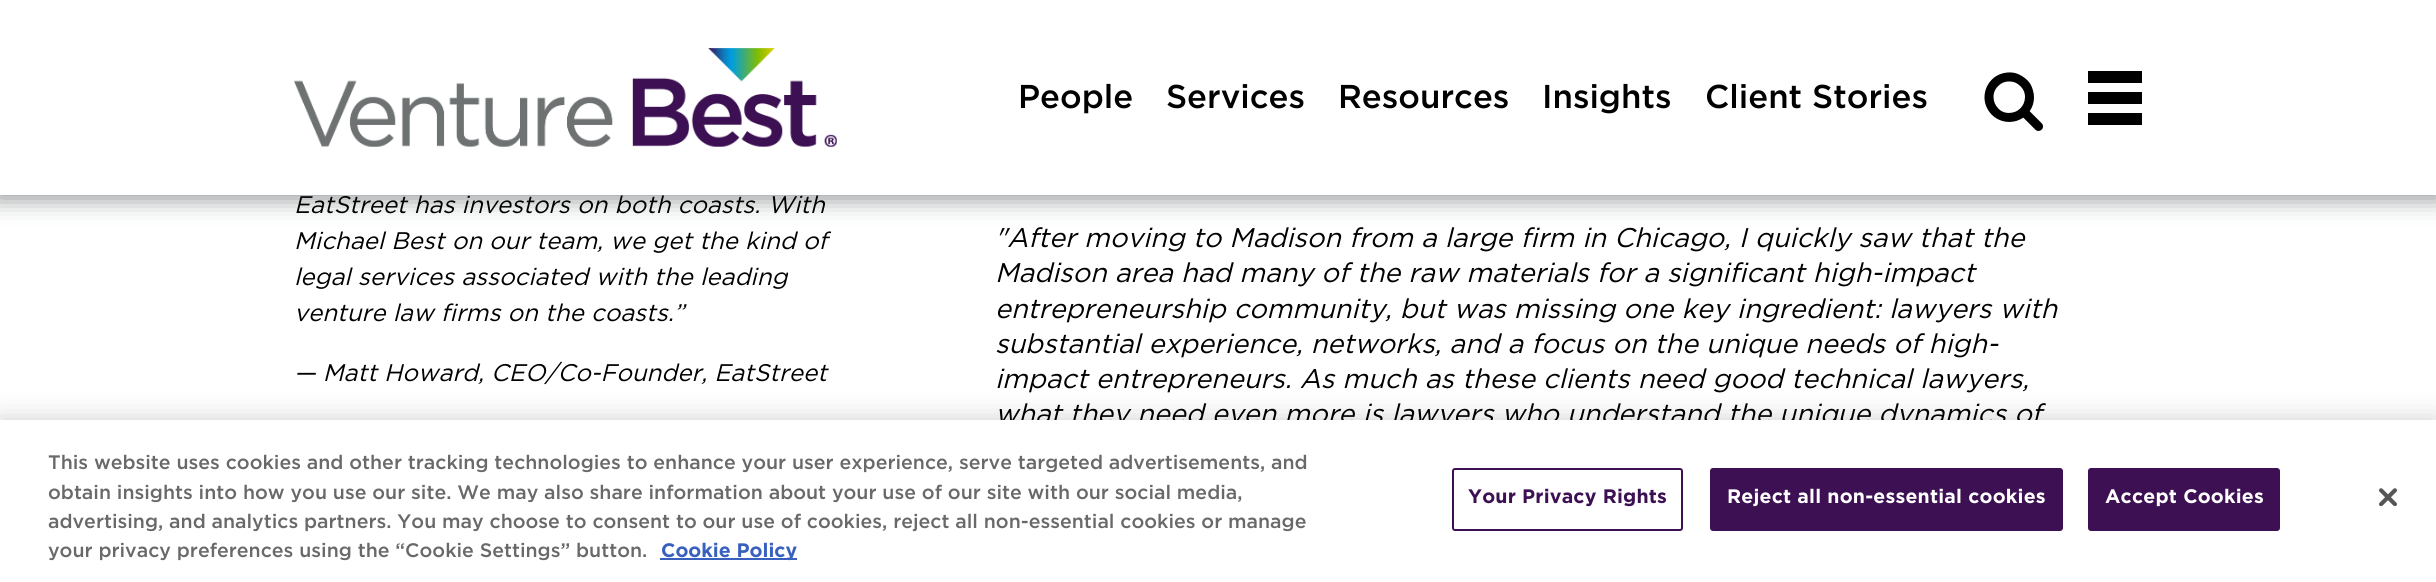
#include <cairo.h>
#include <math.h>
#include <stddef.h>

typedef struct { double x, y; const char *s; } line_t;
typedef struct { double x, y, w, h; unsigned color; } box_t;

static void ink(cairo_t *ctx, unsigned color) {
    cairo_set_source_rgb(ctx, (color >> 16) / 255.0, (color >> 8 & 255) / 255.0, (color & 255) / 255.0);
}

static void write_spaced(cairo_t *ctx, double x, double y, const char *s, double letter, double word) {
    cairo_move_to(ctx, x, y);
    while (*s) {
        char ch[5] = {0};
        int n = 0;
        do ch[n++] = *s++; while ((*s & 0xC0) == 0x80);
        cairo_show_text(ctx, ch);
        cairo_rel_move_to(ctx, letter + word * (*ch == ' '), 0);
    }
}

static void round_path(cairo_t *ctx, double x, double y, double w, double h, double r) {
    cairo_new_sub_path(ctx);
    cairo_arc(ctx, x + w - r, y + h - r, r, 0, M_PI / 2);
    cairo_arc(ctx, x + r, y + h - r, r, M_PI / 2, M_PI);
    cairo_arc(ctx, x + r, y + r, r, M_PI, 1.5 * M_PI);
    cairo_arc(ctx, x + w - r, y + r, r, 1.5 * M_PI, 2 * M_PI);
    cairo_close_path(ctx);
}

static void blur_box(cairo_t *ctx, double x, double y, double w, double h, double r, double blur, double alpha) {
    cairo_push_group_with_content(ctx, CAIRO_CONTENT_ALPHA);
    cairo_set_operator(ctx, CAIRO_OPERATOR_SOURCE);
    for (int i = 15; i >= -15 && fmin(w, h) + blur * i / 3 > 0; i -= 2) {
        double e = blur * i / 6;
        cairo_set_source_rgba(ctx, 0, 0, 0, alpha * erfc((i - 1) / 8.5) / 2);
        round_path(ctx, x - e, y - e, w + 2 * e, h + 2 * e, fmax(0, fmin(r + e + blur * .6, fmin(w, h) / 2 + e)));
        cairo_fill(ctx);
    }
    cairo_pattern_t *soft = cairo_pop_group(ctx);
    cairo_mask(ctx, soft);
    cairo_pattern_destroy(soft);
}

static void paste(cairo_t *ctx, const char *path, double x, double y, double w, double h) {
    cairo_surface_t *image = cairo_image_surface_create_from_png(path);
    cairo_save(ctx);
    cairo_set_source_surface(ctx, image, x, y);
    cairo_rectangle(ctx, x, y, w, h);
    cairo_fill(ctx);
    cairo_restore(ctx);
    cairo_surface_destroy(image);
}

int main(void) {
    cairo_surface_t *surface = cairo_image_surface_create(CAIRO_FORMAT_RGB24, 2436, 582);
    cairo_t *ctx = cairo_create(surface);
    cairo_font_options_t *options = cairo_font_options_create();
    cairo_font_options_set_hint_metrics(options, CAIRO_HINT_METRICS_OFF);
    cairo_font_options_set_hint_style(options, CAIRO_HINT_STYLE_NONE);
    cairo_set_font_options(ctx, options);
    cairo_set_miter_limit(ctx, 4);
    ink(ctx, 0xFFFFFF);
    cairo_paint(ctx);
    ink(ctx, 0x888B8D);
    blur_box(ctx, -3, -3, 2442, 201, 0, 12, 1);
    ink(ctx, 0xFFFFFF);
    cairo_rectangle(ctx, 0, 0, 2436, 195);
    cairo_fill(ctx);
    paste(ctx, "media/1.png", 294, 48, 543, 99);
    cairo_select_font_face(ctx, "Gotham Medium", CAIRO_FONT_SLANT_NORMAL, CAIRO_FONT_WEIGHT_NORMAL);
    cairo_set_font_size(ctx, 33);
    ink(ctx, 0x000000);
    {
        static const line_t items[] = {
            {1018, 108, "People"},
            {1166, 108, "Services"},
            {1338, 108, "Resources"},
            {1542, 108, "Insights"},
            {1705, 108, "Client Stories"},
        };
        for (size_t i = 0; i < sizeof items / sizeof *items; i++) {
            cairo_move_to(ctx, items[i].x, items[i].y);
            cairo_show_text(ctx, items[i].s);
        }
    }
    paste(ctx, "media/2.png", 1984, 72, 59, 59);
    {
        static const box_t items[] = {
            {2088, 71, 54, 12, 0x000000},
            {2088, 92, 54, 12, 0x000000},
            {2088, 113, 54, 12, 0x000000},
        };
        for (size_t i = 0; i < sizeof items / sizeof *items; i++) {
            ink(ctx, items[i].color);
            cairo_rectangle(ctx, items[i].x, items[i].y, items[i].w, items[i].h);
            cairo_fill(ctx);
        }
    }
    cairo_select_font_face(ctx, "Gotham", CAIRO_FONT_SLANT_ITALIC, CAIRO_FONT_WEIGHT_NORMAL);
    cairo_set_font_size(ctx, 24);
    {
        static const line_t items[] = {
            {294, 213, "EatStreet has investors on both coasts. With"},
            {294, 249, "Michael Best on our team, we get the kind of"},
            {294, 285, "legal services associated with the leading"},
            {294, 321, "venture law firms on the coasts.”"},
            {294, 381, "— Matt Howard, CEO/Co-Founder, EatStreet"},
        };
        for (size_t i = 0; i < sizeof items / sizeof *items; i++) {
            cairo_move_to(ctx, items[i].x, items[i].y);
            cairo_show_text(ctx, items[i].s);
        }
    }
    cairo_set_font_size(ctx, 27);
    {
        static const line_t items[] = {
            {995, 247, "\"After moving to Madison from a large firm in Chicago, I quickly saw that the"},
            {995, 282, "Madison area had many of the raw materials for a significant high-impact"},
            {995, 318, "entrepreneurship community, but was missing one key ingredient: lawyers with"},
            {995, 353, "substantial experience, networks, and a focus on the unique needs of high-"},
            {995, 388, "impact entrepreneurs. As much as these clients need good technical lawyers,"},
            {995, 423, "what they need even more is lawyers who understand the unique dynamics of"},
        };
        for (size_t i = 0; i < sizeof items / sizeof *items; i++) {
            cairo_move_to(ctx, items[i].x, items[i].y);
            cairo_show_text(ctx, items[i].s);
        }
    }
    ink(ctx, 0x000000);
    blur_box(ctx, 0, 420, 2436, 162, 0, 13.5, 0.2);
    ink(ctx, 0xFFFFFF);
    cairo_rectangle(ctx, 0, 420, 2436, 162);
    cairo_fill(ctx);
    cairo_select_font_face(ctx, "Gotham Medium", CAIRO_FONT_SLANT_NORMAL, CAIRO_FONT_WEIGHT_NORMAL);
    cairo_set_font_size(ctx, 19.5);
    ink(ctx, 0x696969);
    {
        static const line_t items[] = {
            {48, 469, "This website uses cookies and other tracking technologies to enhance your user experience, serve targeted advertisements, and"},
            {48, 499, "obtain insights into how you use our site. We may also share information about your use of our site with our social media,"},
            {48, 528, "advertising, and analytics partners. You may choose to consent to our use of cookies, reject all non-essential cookies or manage"},
            {48, 557, "your privacy preferences using the “Cookie Settings” button."},
        };
        for (size_t i = 0; i < sizeof items / sizeof *items; i++) {
            cairo_move_to(ctx, items[i].x, items[i].y);
            cairo_show_text(ctx, items[i].s);
        }
    }
    ink(ctx, 0x3860BE);
    cairo_rectangle(ctx, 660, 558, 137, 2);
    cairo_fill(ctx);
    cairo_select_font_face(ctx, "Gotham", CAIRO_FONT_SLANT_NORMAL, CAIRO_FONT_WEIGHT_BOLD);
    cairo_move_to(ctx, 661, 557);
    cairo_show_text(ctx, "Cookie Policy");
    round_path(ctx, 1453, 469, 229, 61, 2);
    ink(ctx, 0x3C1053);
    cairo_stroke(ctx);
    write_spaced(ctx, 1468, 503, "Your Privacy Rights", 0.2, 0);
    round_path(ctx, 1711, 469, 351, 61, 2);
    cairo_fill_preserve(ctx);
    cairo_stroke(ctx);
    ink(ctx, 0xFFFFFF);
    write_spaced(ctx, 1727, 503, "Reject all non-essential cookies", 0.2, 0);
    ink(ctx, 0x3C1053);
    round_path(ctx, 2089, 469, 190, 61, 2);
    cairo_fill_preserve(ctx);
    cairo_stroke(ctx);
    ink(ctx, 0xFFFFFF);
    write_spaced(ctx, 2105, 503, "Accept Cookies", 0.2, 0);
    paste(ctx, "media/3.png", 2379, 488, 18, 18);
    cairo_surface_write_to_png(surface, "image.png");
    cairo_font_options_destroy(options);
    cairo_destroy(ctx);
    cairo_surface_destroy(surface);
    return 0;
}
